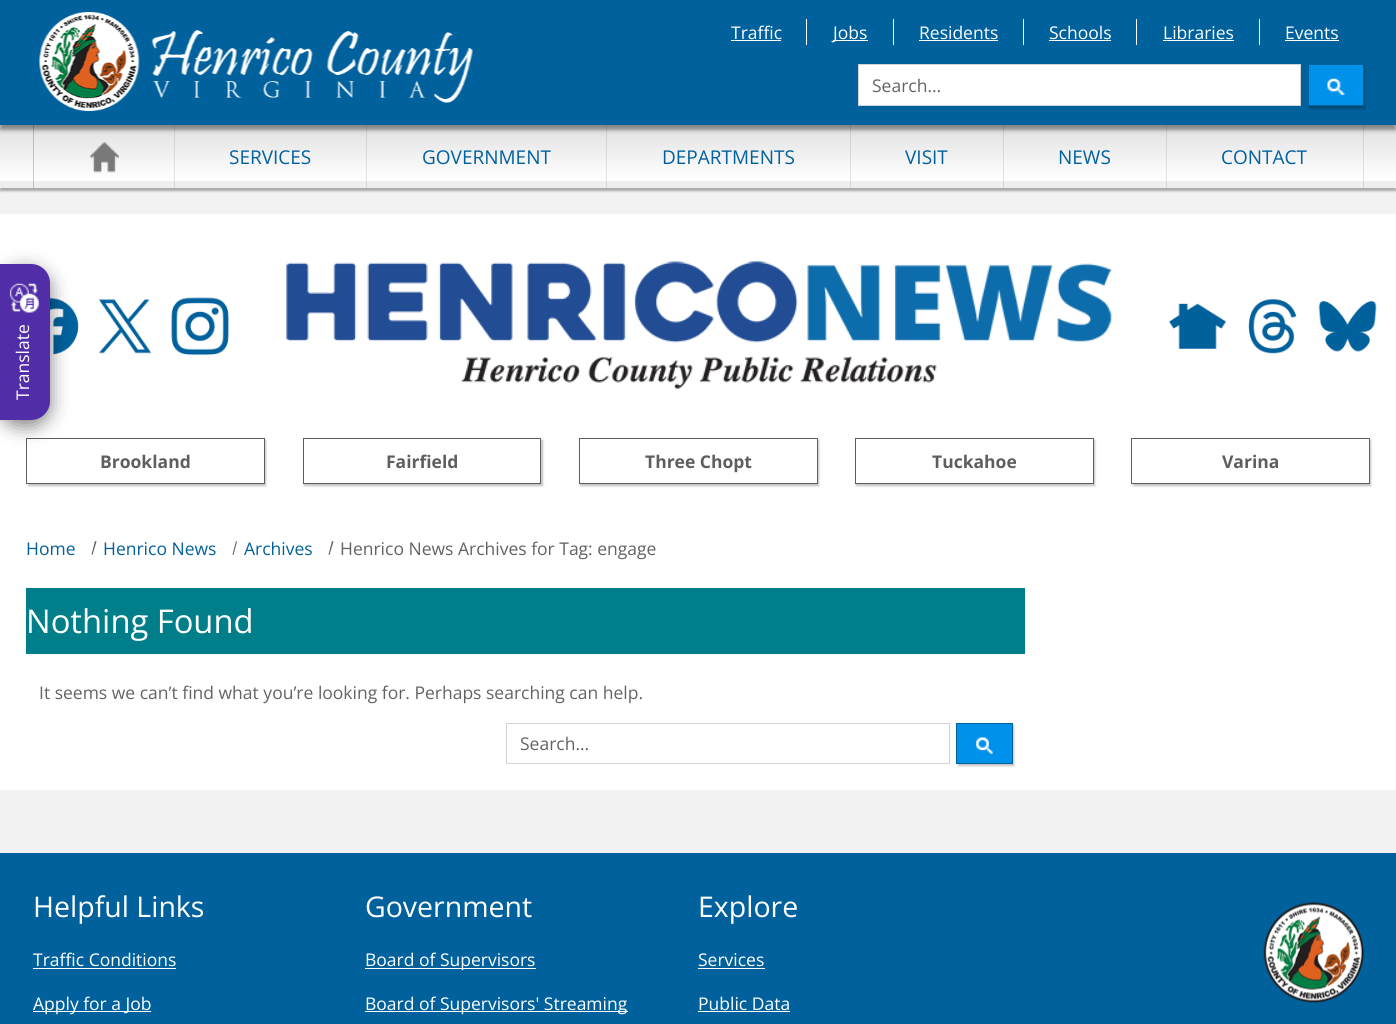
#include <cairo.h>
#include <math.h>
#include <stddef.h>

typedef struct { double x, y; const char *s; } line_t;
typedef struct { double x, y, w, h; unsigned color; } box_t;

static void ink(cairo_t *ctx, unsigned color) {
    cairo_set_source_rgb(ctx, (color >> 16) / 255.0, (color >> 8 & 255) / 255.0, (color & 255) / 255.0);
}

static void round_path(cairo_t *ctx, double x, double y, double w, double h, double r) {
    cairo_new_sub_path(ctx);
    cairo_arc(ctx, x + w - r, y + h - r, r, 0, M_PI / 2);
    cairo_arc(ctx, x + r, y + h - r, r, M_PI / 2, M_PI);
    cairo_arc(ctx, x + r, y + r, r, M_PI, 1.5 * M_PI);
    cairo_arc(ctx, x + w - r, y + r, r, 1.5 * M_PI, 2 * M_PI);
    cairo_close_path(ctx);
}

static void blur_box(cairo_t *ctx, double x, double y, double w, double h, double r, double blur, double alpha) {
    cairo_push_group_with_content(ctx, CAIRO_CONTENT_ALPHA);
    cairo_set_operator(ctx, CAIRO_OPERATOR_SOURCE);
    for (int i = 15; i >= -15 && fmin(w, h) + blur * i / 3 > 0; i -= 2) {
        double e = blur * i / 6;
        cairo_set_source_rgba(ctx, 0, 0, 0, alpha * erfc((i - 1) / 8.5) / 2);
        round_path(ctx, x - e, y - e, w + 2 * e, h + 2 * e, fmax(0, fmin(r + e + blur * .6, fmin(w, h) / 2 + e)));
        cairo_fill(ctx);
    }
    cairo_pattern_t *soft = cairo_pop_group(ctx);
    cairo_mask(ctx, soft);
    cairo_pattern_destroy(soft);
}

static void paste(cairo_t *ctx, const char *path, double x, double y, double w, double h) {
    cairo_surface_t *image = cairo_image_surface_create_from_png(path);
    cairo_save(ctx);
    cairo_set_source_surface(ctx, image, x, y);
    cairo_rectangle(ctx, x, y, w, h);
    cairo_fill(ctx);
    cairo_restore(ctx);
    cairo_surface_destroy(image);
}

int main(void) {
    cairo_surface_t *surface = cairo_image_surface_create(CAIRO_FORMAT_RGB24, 1396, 1024);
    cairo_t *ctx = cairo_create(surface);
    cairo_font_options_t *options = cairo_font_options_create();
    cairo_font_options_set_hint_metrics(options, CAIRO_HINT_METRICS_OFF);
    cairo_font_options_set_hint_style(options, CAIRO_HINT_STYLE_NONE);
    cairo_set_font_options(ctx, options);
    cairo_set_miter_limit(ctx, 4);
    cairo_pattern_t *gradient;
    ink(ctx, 0xF2F2F2);
    cairo_paint(ctx);
    ink(ctx, 0xFFFFFF);
    cairo_rectangle(ctx, 0, 214, 1396, 576);
    cairo_fill(ctx);
    paste(ctx, "media/5.png", 50, 297, 29, 58);
    ink(ctx, 0x000000);
    blur_box(ctx, 28, 440, 238, 46, 0, 1, 0.24);
    ink(ctx, 0xFFFFFF);
    cairo_rectangle(ctx, 26.5, 438.5, 238, 45);
    cairo_fill_preserve(ctx);
    ink(ctx, 0x5E5E5E);
    cairo_set_line_width(ctx, 1);
    cairo_stroke(ctx);
    ink(ctx, 0x000000);
    blur_box(ctx, 0, 270, 50, 156, 19, 9.5, 0.5);
    ink(ctx, 0x512DA8);
    cairo_new_path(ctx);
    cairo_move_to(ctx, 0, 264);
    cairo_line_to(ctx, 31, 264);
    cairo_curve_to(ctx, 41.5, 264, 50, 272.5, 50, 283);
    cairo_line_to(ctx, 50, 401);
    cairo_curve_to(ctx, 50, 411.5, 41.5, 420, 31, 420);
    cairo_line_to(ctx, 0, 420);
    cairo_close_path(ctx);
    cairo_fill(ctx);
    paste(ctx, "media/1.png", 9, 283, 30, 30);
    cairo_select_font_face(ctx, "Open Sans", CAIRO_FONT_SLANT_NORMAL, CAIRO_FONT_WEIGHT_NORMAL);
    cairo_set_font_size(ctx, 17.5);
    ink(ctx, 0xFFFFFF);
    cairo_save(ctx);
    cairo_translate(ctx, 29, 400);
    cairo_rotate(ctx, -90 * M_PI / 180);
    cairo_move_to(ctx, 0, 0);
    cairo_show_text(ctx, "Translate");
    cairo_restore(ctx);
    ink(ctx, 0x000000);
    blur_box(ctx, 0, 129, 1396, 62, 0, 1, 0.3);
    gradient = cairo_pattern_create_linear(698, 125, 698, 181);
    cairo_pattern_add_color_stop_rgba(gradient, 0, 0.882, 0.882, 0.882, 1);
    cairo_pattern_add_color_stop_rgba(gradient, 1, 1, 1, 1, 1);
    cairo_set_source(ctx, gradient);
    cairo_pattern_destroy(gradient);
    cairo_rectangle(ctx, 0, 125, 1396, 56);
    cairo_fill(ctx);
    ink(ctx, 0xEEEEEE);
    cairo_rectangle(ctx, 0, 181, 1396, 7);
    cairo_fill(ctx);
    cairo_set_source_rgba(ctx, 0, 0, 0, 0.1);
    cairo_rectangle(ctx, 174, 125, 1, 63);
    cairo_fill(ctx);
    cairo_set_source_rgba(ctx, 0, 0, 0, 0.2);
    cairo_rectangle(ctx, 33, 125, 1, 63);
    cairo_fill(ctx);
    cairo_set_source_rgba(ctx, 0, 0, 0, 0.1);
    cairo_rectangle(ctx, 366, 125, 1, 63);
    cairo_fill(ctx);
    cairo_rectangle(ctx, 606, 125, 1, 63);
    cairo_fill(ctx);
    cairo_rectangle(ctx, 850, 125, 1, 63);
    cairo_fill(ctx);
    cairo_rectangle(ctx, 1003, 125, 1, 63);
    cairo_fill(ctx);
    cairo_rectangle(ctx, 1166, 125, 1, 63);
    cairo_fill(ctx);
    cairo_rectangle(ctx, 1363, 125, 1, 63);
    cairo_fill(ctx);
    ink(ctx, 0x000000);
    blur_box(ctx, 0, 5, 1396, 125, 0, 2, 0.4);
    ink(ctx, 0x01619D);
    cairo_rectangle(ctx, 0, 0, 1396, 125);
    cairo_fill(ctx);
    paste(ctx, "media/2.png", 39, 12, 434, 99);
    ink(ctx, 0xFFFFFF);
    cairo_rectangle(ctx, 806, 19, 1, 26);
    cairo_fill(ctx);
    cairo_move_to(ctx, 731, 39);
    cairo_show_text(ctx, "Traffic");
    {
        static const box_t items[] = {
            {731, 40, 50, 1, 0xFFFFFF},
            {893, 19, 1, 26, 0xFFFFFF},
            {833, 40, 35, 1, 0xFFFFFF},
        };
        for (size_t i = 0; i < sizeof items / sizeof *items; i++) {
            ink(ctx, items[i].color);
            cairo_rectangle(ctx, items[i].x, items[i].y, items[i].w, items[i].h);
            cairo_fill(ctx);
        }
    }
    cairo_move_to(ctx, 833, 39);
    cairo_show_text(ctx, "Jobs");
    cairo_rectangle(ctx, 1023, 19, 1, 26);
    cairo_fill(ctx);
    cairo_move_to(ctx, 919, 39);
    cairo_show_text(ctx, "Residents");
    cairo_rectangle(ctx, 919, 40, 79, 1);
    cairo_fill(ctx);
    cairo_rectangle(ctx, 1136, 19, 1, 26);
    cairo_fill(ctx);
    cairo_move_to(ctx, 1049, 39);
    cairo_show_text(ctx, "Schools");
    cairo_rectangle(ctx, 1049, 40, 62, 1);
    cairo_fill(ctx);
    cairo_rectangle(ctx, 1259, 19, 1, 26);
    cairo_fill(ctx);
    cairo_move_to(ctx, 1163, 39);
    cairo_show_text(ctx, "Libraries");
    cairo_rectangle(ctx, 1163, 40, 71, 1);
    cairo_fill(ctx);
    cairo_move_to(ctx, 1285, 39);
    cairo_show_text(ctx, "Events");
    cairo_rectangle(ctx, 1285, 40, 54, 1);
    cairo_fill(ctx);
    cairo_rectangle(ctx, 858.5, 64.5, 442, 41);
    cairo_fill_preserve(ctx);
    ink(ctx, 0xCED4DA);
    cairo_stroke(ctx);
    ink(ctx, 0x646262);
    cairo_move_to(ctx, 872, 92);
    cairo_show_text(ctx, "Search...");
    ink(ctx, 0x000000);
    blur_box(ctx, 1309, 66, 56, 43, 0, 1, 0.24);
    ink(ctx, 0x0091EA);
    cairo_rectangle(ctx, 1308.5, 64.5, 55, 41);
    cairo_fill_preserve(ctx);
    ink(ctx, 0x01619D);
    cairo_stroke(ctx);
    paste(ctx, "media/3.png", 1327, 78, 18, 17);
    paste(ctx, "media/4.png", 89, 141, 31, 32);
    cairo_set_font_size(ctx, 19);
    {
        static const line_t items[] = {
            {229, 164, "SERVICES"},
            {422, 164, "GOVERNMENT"},
            {662, 164, "DEPARTMENTS"},
            {905, 164, "VISIT"},
            {1058, 164, "NEWS"},
            {1221, 164, "CONTACT"},
        };
        for (size_t i = 0; i < sizeof items / sizeof *items; i++) {
            cairo_move_to(ctx, items[i].x, items[i].y);
            cairo_show_text(ctx, items[i].s);
        }
    }
    paste(ctx, "media/6.png", 99, 299, 53, 55);
    paste(ctx, "media/7.png", 171, 297, 58, 58);
    paste(ctx, "media/8.png", 286, 261, 826, 128);
    paste(ctx, "media/9.png", 1168, 303, 59, 46);
    paste(ctx, "media/10.png", 1248, 299, 49, 55);
    paste(ctx, "media/11.png", 1318, 301, 59, 51);
    cairo_select_font_face(ctx, "Open Sans", CAIRO_FONT_SLANT_NORMAL, CAIRO_FONT_WEIGHT_BOLD);
    cairo_set_font_size(ctx, 17.5);
    ink(ctx, 0x5E5E5E);
    cairo_move_to(ctx, 100, 468);
    cairo_show_text(ctx, "Brookland");
    ink(ctx, 0x000000);
    blur_box(ctx, 304, 440, 239, 46, 0, 1, 0.24);
    ink(ctx, 0xFFFFFF);
    cairo_rectangle(ctx, 303.5, 438.5, 237, 45);
    cairo_fill_preserve(ctx);
    ink(ctx, 0x5E5E5E);
    cairo_stroke(ctx);
    cairo_move_to(ctx, 386, 468);
    cairo_show_text(ctx, "Fairfield");
    ink(ctx, 0x000000);
    blur_box(ctx, 580, 440, 239, 46, 0, 1, 0.24);
    ink(ctx, 0xFFFFFF);
    cairo_rectangle(ctx, 579.5, 438.5, 238, 45);
    cairo_fill_preserve(ctx);
    ink(ctx, 0x5E5E5E);
    cairo_stroke(ctx);
    cairo_move_to(ctx, 645, 468);
    cairo_show_text(ctx, "Three Chopt");
    ink(ctx, 0x000000);
    blur_box(ctx, 856, 440, 239, 46, 0, 1, 0.24);
    ink(ctx, 0xFFFFFF);
    cairo_rectangle(ctx, 855.5, 438.5, 238, 45);
    cairo_fill_preserve(ctx);
    ink(ctx, 0x5E5E5E);
    cairo_stroke(ctx);
    cairo_move_to(ctx, 932, 468);
    cairo_show_text(ctx, "Tuckahoe");
    ink(ctx, 0x000000);
    blur_box(ctx, 1133, 440, 238, 46, 0, 1, 0.24);
    ink(ctx, 0xFFFFFF);
    cairo_rectangle(ctx, 1131.5, 438.5, 238, 45);
    cairo_fill_preserve(ctx);
    ink(ctx, 0x5E5E5E);
    cairo_stroke(ctx);
    cairo_move_to(ctx, 1222, 468);
    cairo_show_text(ctx, "Varina");
    cairo_select_font_face(ctx, "Open Sans", CAIRO_FONT_SLANT_NORMAL, CAIRO_FONT_WEIGHT_NORMAL);
    ink(ctx, 0x01619D);
    cairo_move_to(ctx, 26, 555);
    cairo_show_text(ctx, "Home");
    ink(ctx, 0x646262);
    cairo_new_path(ctx);
    cairo_move_to(ctx, 95, 541);
    cairo_line_to(ctx, 96.5, 541.5);
    cairo_line_to(ctx, 92.5, 555);
    cairo_line_to(ctx, 91.5, 554.5);
    cairo_close_path(ctx);
    cairo_fill(ctx);
    ink(ctx, 0x01619D);
    cairo_move_to(ctx, 103, 555);
    cairo_show_text(ctx, "Henrico News");
    ink(ctx, 0x646262);
    cairo_new_path(ctx);
    cairo_move_to(ctx, 236, 541);
    cairo_line_to(ctx, 237, 541.5);
    cairo_line_to(ctx, 233.5, 555);
    cairo_line_to(ctx, 232.5, 554.5);
    cairo_close_path(ctx);
    cairo_fill(ctx);
    ink(ctx, 0x01619D);
    cairo_move_to(ctx, 244, 555);
    cairo_show_text(ctx, "Archives");
    ink(ctx, 0x646262);
    cairo_new_path(ctx);
    cairo_move_to(ctx, 332, 541);
    cairo_line_to(ctx, 333.5, 541.5);
    cairo_line_to(ctx, 329.5, 555);
    cairo_line_to(ctx, 328.5, 554.5);
    cairo_close_path(ctx);
    cairo_fill(ctx);
    cairo_move_to(ctx, 340, 555);
    cairo_show_text(ctx, "Henrico News Archives for Tag: engage");
    ink(ctx, 0x007E8A);
    cairo_rectangle(ctx, 26, 588, 999, 66);
    cairo_fill(ctx);
    cairo_set_font_size(ctx, 32.75);
    ink(ctx, 0xFFFFFF);
    cairo_move_to(ctx, 26, 633);
    cairo_show_text(ctx, "Nothing Found");
    cairo_set_font_size(ctx, 17.5);
    ink(ctx, 0x646262);
    cairo_move_to(ctx, 39, 699);
    cairo_show_text(ctx, "It seems we can’t find what you’re looking for. Perhaps searching can help.");
    cairo_rectangle(ctx, 506.5, 723.5, 443, 40);
    ink(ctx, 0xCED4DA);
    cairo_stroke(ctx);
    ink(ctx, 0x646262);
    cairo_move_to(ctx, 520, 750);
    cairo_show_text(ctx, "Search...");
    ink(ctx, 0x000000);
    blur_box(ctx, 958, 725, 56, 41, 0, 1, 0.24);
    ink(ctx, 0x0091EA);
    cairo_rectangle(ctx, 956.5, 723.5, 56, 40);
    cairo_fill_preserve(ctx);
    ink(ctx, 0x01619D);
    cairo_stroke(ctx);
    paste(ctx, "media/12.png", 976, 737, 17, 17);
    cairo_rectangle(ctx, 0, 853, 1396, 171);
    cairo_fill(ctx);
    cairo_set_font_size(ctx, 28.5);
    ink(ctx, 0xFFFFFF);
    cairo_move_to(ctx, 33, 917);
    cairo_show_text(ctx, "Helpful Links");
    cairo_set_font_size(ctx, 17.5);
    cairo_move_to(ctx, 33, 966);
    cairo_show_text(ctx, "Traffic Conditions");
    cairo_rectangle(ctx, 33, 968, 143, 1);
    cairo_fill(ctx);
    cairo_rectangle(ctx, 33, 1011, 118, 1);
    cairo_fill(ctx);
    cairo_move_to(ctx, 33, 1010);
    cairo_show_text(ctx, "Apply for a Job");
    cairo_set_font_size(ctx, 28.5);
    cairo_move_to(ctx, 365, 917);
    cairo_show_text(ctx, "Government");
    cairo_rectangle(ctx, 365, 968, 171, 1);
    cairo_fill(ctx);
    cairo_set_font_size(ctx, 17.5);
    cairo_move_to(ctx, 365, 966);
    cairo_show_text(ctx, "Board of Supervisors");
    cairo_rectangle(ctx, 365, 1011, 263, 1);
    cairo_fill(ctx);
    cairo_move_to(ctx, 365, 1010);
    cairo_show_text(ctx, "Board of Supervisors' Streaming");
    cairo_set_font_size(ctx, 28.5);
    cairo_move_to(ctx, 698, 917);
    cairo_show_text(ctx, "Explore");
    cairo_set_font_size(ctx, 17.5);
    cairo_move_to(ctx, 698, 966);
    cairo_show_text(ctx, "Services");
    cairo_rectangle(ctx, 698, 968, 67, 1);
    cairo_fill(ctx);
    cairo_move_to(ctx, 698, 1010);
    cairo_show_text(ctx, "Public Data");
    cairo_rectangle(ctx, 698, 1011, 92, 1);
    cairo_fill(ctx);
    paste(ctx, "media/13.png", 1263, 902, 101, 101);
    cairo_surface_write_to_png(surface, "image.png");
    cairo_font_options_destroy(options);
    cairo_destroy(ctx);
    cairo_surface_destroy(surface);
    return 0;
}
